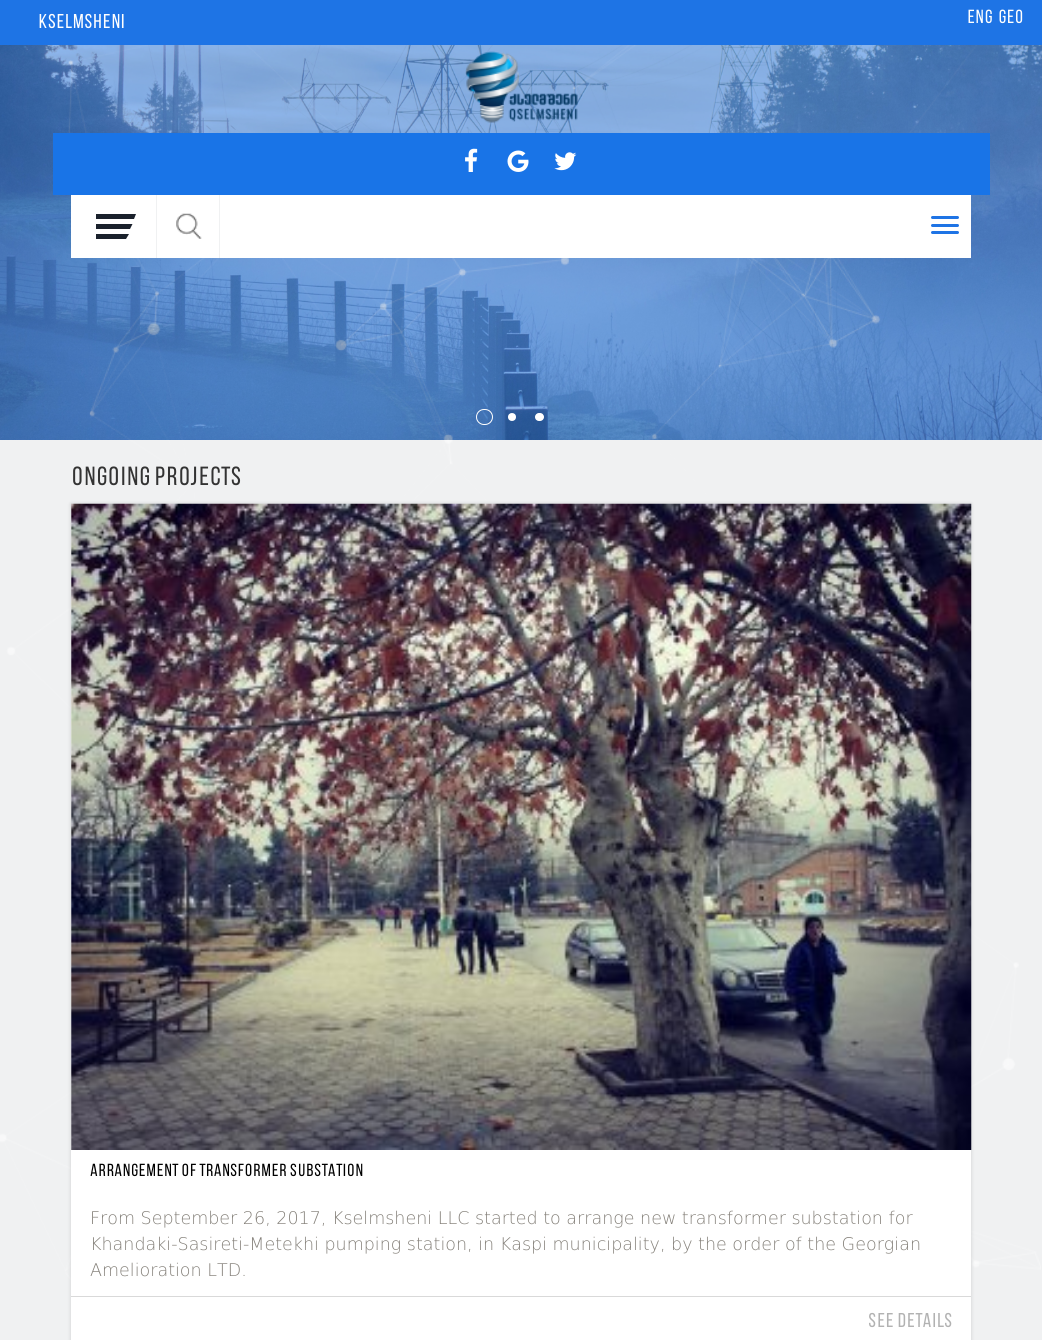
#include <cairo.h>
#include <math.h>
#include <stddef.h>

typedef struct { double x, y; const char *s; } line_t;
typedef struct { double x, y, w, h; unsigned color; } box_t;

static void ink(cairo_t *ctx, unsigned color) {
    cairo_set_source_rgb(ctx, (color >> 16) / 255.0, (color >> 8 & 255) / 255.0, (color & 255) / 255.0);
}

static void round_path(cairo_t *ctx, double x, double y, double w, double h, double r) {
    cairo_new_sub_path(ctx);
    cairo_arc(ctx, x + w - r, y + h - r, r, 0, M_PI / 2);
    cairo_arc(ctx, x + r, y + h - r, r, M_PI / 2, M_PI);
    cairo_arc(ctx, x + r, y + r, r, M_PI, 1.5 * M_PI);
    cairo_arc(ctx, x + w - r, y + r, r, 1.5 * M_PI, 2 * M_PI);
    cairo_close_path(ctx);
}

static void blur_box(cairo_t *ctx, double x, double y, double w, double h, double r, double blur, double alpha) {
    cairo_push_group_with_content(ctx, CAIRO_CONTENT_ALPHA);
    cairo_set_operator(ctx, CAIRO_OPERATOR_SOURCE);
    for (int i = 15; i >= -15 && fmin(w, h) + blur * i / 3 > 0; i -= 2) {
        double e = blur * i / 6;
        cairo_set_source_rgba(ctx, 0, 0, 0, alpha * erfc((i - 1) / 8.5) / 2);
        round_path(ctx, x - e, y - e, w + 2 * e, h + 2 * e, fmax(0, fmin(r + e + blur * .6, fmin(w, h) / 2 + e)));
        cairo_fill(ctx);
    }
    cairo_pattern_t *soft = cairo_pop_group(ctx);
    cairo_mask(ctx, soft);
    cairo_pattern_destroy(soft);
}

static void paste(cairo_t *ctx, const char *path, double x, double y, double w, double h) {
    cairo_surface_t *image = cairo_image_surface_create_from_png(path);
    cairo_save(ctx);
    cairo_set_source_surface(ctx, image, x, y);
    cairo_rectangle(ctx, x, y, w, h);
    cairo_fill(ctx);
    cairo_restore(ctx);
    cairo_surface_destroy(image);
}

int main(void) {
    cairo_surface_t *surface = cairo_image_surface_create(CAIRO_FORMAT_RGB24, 1042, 1340);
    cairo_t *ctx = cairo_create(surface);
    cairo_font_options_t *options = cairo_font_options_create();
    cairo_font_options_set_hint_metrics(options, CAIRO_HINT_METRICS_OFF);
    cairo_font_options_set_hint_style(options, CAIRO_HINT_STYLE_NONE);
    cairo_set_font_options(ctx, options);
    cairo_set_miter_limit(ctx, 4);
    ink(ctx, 0xF0F1F2);
    cairo_paint(ctx);
    ink(ctx, 0x1E74E5);
    cairo_rectangle(ctx, 0, 0, 1042, 440);
    cairo_fill(ctx);
    paste(ctx, "media/7.png", 0, 45, 1041, 1236);
    paste(ctx, "media/1.png", 0, 45, 1042, 395);
    round_path(ctx, 476.5, 409.5, 16, 15, 7.5);
    ink(ctx, 0xFFFFFF);
    cairo_set_line_width(ctx, 1);
    cairo_stroke(ctx);
    cairo_arc(ctx, 512, 417, 4, 0, 2 * M_PI);
    cairo_fill(ctx);
    round_path(ctx, 535, 413, 9, 8, 4);
    cairo_fill(ctx);
    cairo_select_font_face(ctx, "Bebas Neue", CAIRO_FONT_SLANT_NORMAL, CAIRO_FONT_WEIGHT_NORMAL);
    cairo_set_font_size(ctx, 20);
    cairo_move_to(ctx, 38, 28);
    cairo_show_text(ctx, "Kselmsheni");
    cairo_set_font_size(ctx, 19);
    cairo_move_to(ctx, 967, 23);
    cairo_show_text(ctx, "ENG");
    cairo_move_to(ctx, 998, 23);
    cairo_show_text(ctx, "GEO");
    paste(ctx, "media/2.png", 465, 51, 113, 72);
    ink(ctx, 0x1974E7);
    cairo_rectangle(ctx, 53, 133, 937, 62);
    cairo_fill(ctx);
    paste(ctx, "media/3.png", 465, 148, 13, 24);
    paste(ctx, "media/4.png", 507, 150, 22, 22);
    paste(ctx, "media/5.png", 554, 152, 23, 19);
    {
        static const box_t items[] = {
            {71, 195, 900, 63, 0xFFFFFF},
            {156, 195, 1, 63, 0xF0F1F2},
            {96, 214, 38, 5, 0x1A212C},
        };
        for (size_t i = 0; i < sizeof items / sizeof *items; i++) {
            ink(ctx, items[i].color);
            cairo_rectangle(ctx, items[i].x, items[i].y, items[i].w, items[i].h);
            cairo_fill(ctx);
        }
    }
    cairo_new_path(ctx);
    cairo_move_to(ctx, 134, 214);
    cairo_line_to(ctx, 136, 214);
    cairo_line_to(ctx, 134, 219);
    cairo_close_path(ctx);
    cairo_fill(ctx);
    cairo_rectangle(ctx, 96, 224, 34, 5);
    cairo_fill(ctx);
    cairo_new_path(ctx);
    cairo_move_to(ctx, 130, 224);
    cairo_line_to(ctx, 132.5, 224);
    cairo_line_to(ctx, 130, 229);
    cairo_close_path(ctx);
    cairo_fill(ctx);
    cairo_rectangle(ctx, 96, 234, 30, 5);
    cairo_fill(ctx);
    cairo_new_path(ctx);
    cairo_move_to(ctx, 126, 234);
    cairo_line_to(ctx, 129, 234);
    cairo_line_to(ctx, 126, 239);
    cairo_close_path(ctx);
    cairo_fill(ctx);
    paste(ctx, "media/6.png", 176, 213, 26, 26);
    ink(ctx, 0xF0F1F2);
    cairo_rectangle(ctx, 219, 195, 1, 63);
    cairo_fill(ctx);
    ink(ctx, 0x1E74E5);
    round_path(ctx, 931, 216, 28, 3, 1.5);
    cairo_fill(ctx);
    round_path(ctx, 931, 224, 28, 3, 1.5);
    cairo_fill(ctx);
    round_path(ctx, 931, 231, 28, 3, 1.5);
    cairo_fill(ctx);
    cairo_set_font_size(ctx, 26.25);
    ink(ctx, 0x333333);
    cairo_move_to(ctx, 71, 485);
    cairo_show_text(ctx, "Ongoing projects");
    ink(ctx, 0x070606);
    blur_box(ctx, 71, 504, 900, 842, 0, 2, 0.15);
    ink(ctx, 0xFFFFFF);
    cairo_rectangle(ctx, 71, 504, 900, 836);
    cairo_fill(ctx);
    paste(ctx, "media/8.png", 71, 503, 901, 647);
    cairo_set_font_size(ctx, 17.5);
    ink(ctx, 0x000000);
    cairo_move_to(ctx, 90, 1176);
    cairo_show_text(ctx, "Arrangement of Transformer Substation");
    cairo_select_font_face(ctx, "DejaVu Sans ExtraLight", CAIRO_FONT_SLANT_NORMAL, CAIRO_FONT_WEIGHT_NORMAL);
    ink(ctx, 0x848079);
    {
        static const line_t items[] = {
            {90, 1224, "From September 26, 2017, Kselmsheni LLC started to arrange new transformer substation for"},
            {90, 1250, "Khandaki-Sasireti-Metekhi pumping station, in Kaspi municipality, by the order of the Georgian"},
            {90, 1276, "Amelioration LTD."},
        };
        for (size_t i = 0; i < sizeof items / sizeof *items; i++) {
            cairo_move_to(ctx, items[i].x, items[i].y);
            cairo_show_text(ctx, items[i].s);
        }
    }
    ink(ctx, 0xD9D9D9);
    cairo_rectangle(ctx, 71, 1296, 900, 1);
    cairo_fill(ctx);
    cairo_select_font_face(ctx, "Bebas Neue", CAIRO_FONT_SLANT_NORMAL, CAIRO_FONT_WEIGHT_NORMAL);
    cairo_set_font_size(ctx, 20);
    ink(ctx, 0xB2B2B2);
    cairo_move_to(ctx, 868, 1327);
    cairo_show_text(ctx, "See details");
    cairo_surface_write_to_png(surface, "image.png");
    cairo_font_options_destroy(options);
    cairo_destroy(ctx);
    cairo_surface_destroy(surface);
    return 0;
}
